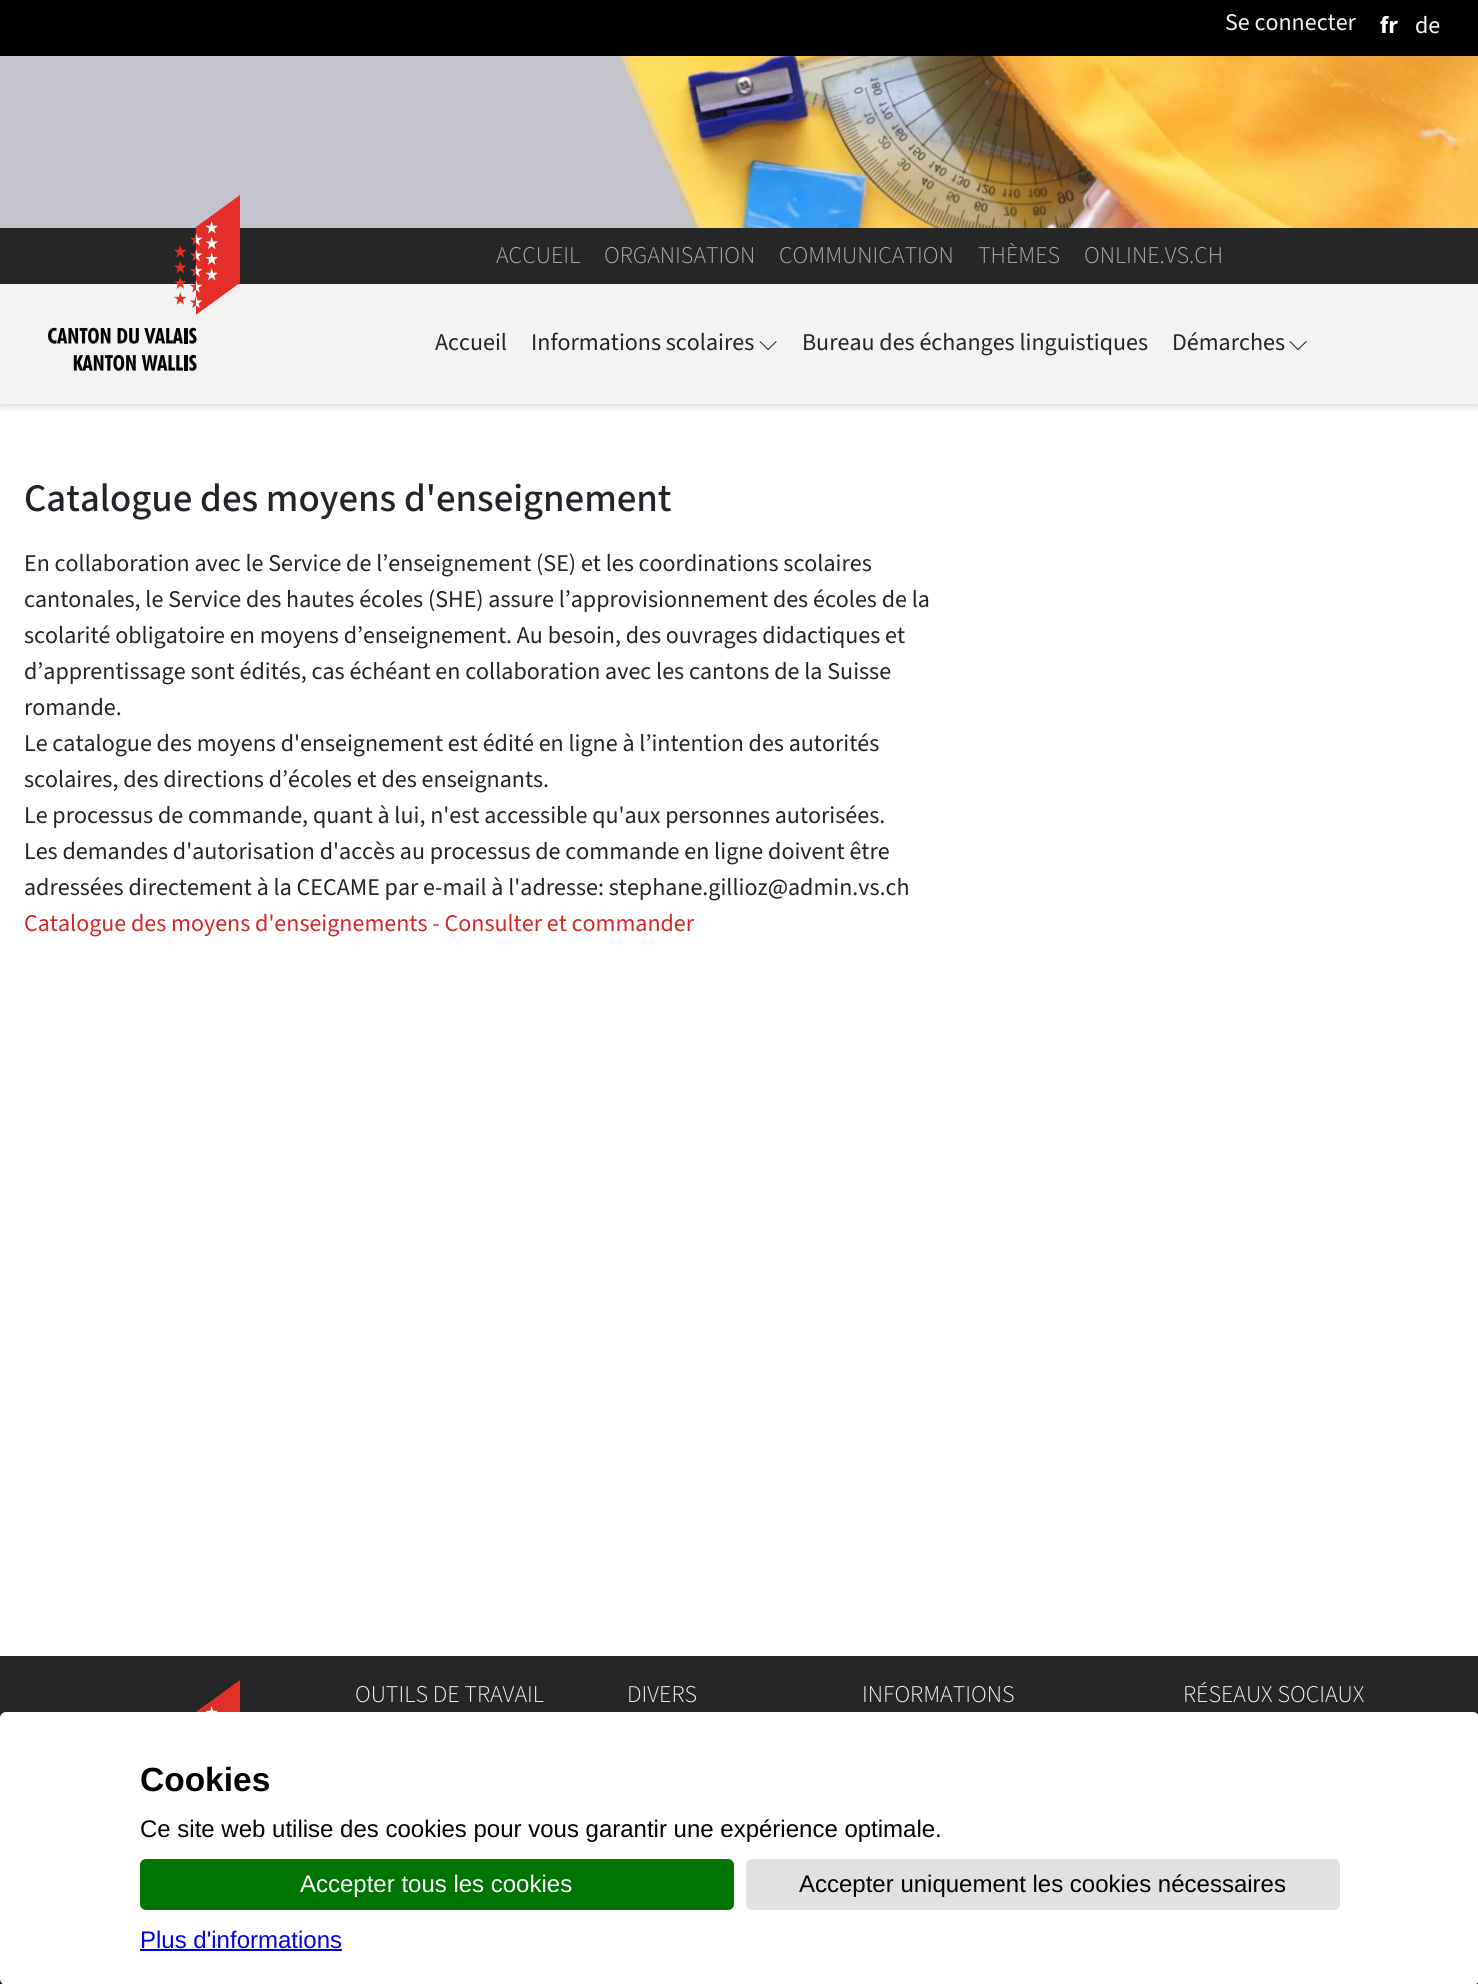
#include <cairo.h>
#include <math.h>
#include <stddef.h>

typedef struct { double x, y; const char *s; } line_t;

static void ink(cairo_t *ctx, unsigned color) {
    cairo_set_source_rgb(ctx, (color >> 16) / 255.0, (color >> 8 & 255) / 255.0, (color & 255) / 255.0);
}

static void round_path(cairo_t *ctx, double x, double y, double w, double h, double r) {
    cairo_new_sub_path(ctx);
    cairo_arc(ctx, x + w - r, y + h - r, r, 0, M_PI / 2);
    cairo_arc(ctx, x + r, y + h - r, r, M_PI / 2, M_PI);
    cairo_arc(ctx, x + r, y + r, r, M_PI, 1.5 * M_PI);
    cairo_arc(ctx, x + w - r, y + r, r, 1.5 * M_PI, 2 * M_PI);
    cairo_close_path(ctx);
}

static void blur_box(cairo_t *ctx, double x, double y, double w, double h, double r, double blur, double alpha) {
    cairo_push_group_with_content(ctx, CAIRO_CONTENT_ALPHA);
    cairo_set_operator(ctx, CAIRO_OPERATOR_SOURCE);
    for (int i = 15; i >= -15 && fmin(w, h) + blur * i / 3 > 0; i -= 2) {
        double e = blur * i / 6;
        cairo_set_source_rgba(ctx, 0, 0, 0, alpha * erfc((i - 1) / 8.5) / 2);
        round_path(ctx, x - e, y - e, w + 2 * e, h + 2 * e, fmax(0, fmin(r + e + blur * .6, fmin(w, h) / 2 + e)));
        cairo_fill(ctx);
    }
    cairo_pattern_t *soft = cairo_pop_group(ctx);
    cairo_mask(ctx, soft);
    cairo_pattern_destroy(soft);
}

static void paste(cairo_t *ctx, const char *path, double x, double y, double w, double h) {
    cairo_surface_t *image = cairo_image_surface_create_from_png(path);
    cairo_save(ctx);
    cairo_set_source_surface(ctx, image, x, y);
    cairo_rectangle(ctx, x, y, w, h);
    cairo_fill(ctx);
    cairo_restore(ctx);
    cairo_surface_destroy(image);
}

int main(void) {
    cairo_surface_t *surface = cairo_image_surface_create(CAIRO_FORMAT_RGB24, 1478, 1984);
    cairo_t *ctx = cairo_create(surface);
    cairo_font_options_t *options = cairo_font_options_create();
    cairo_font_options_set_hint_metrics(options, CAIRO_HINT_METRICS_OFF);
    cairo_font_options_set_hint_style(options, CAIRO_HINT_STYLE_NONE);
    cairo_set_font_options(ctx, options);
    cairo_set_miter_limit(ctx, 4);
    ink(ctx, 0xFFFFFF);
    cairo_paint(ctx);
    ink(ctx, 0x000000);
    cairo_rectangle(ctx, 0, 0, 1478, 56);
    cairo_fill(ctx);
    cairo_select_font_face(ctx, "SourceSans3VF", CAIRO_FONT_SLANT_NORMAL, CAIRO_FONT_WEIGHT_NORMAL);
    cairo_set_font_size(ctx, 24);
    ink(ctx, 0xF3F3F2);
    cairo_move_to(ctx, 1225, 30);
    cairo_show_text(ctx, "Se connecter");
    cairo_select_font_face(ctx, "SourceSans3VF", CAIRO_FONT_SLANT_NORMAL, CAIRO_FONT_WEIGHT_BOLD);
    ink(ctx, 0xFFFFFF);
    cairo_move_to(ctx, 1380, 33);
    cairo_show_text(ctx, "fr");
    cairo_select_font_face(ctx, "SourceSans3VF", CAIRO_FONT_SLANT_NORMAL, CAIRO_FONT_WEIGHT_NORMAL);
    cairo_move_to(ctx, 1415, 33);
    cairo_show_text(ctx, "de");
    paste(ctx, "media/1.png", 0, 56, 1478, 172);
    ink(ctx, 0x262626);
    cairo_rectangle(ctx, 0, 228, 1478, 56);
    cairo_fill(ctx);
    ink(ctx, 0x000000);
    blur_box(ctx, 0, 287, 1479, 120, 0, 2.5, 0.15);
    ink(ctx, 0xF3F3F2);
    cairo_rectangle(ctx, 0, 284, 1478, 120);
    cairo_fill(ctx);
    paste(ctx, "media/2.png", 48, 195, 192, 176);
    cairo_select_font_face(ctx, "SourceSans3VF Light", CAIRO_FONT_SLANT_NORMAL, CAIRO_FONT_WEIGHT_NORMAL);
    ink(ctx, 0xAAAAAA);
    {
        static const line_t items[] = {
            {496, 263, "ACCUEIL"},
            {604, 263, "ORGANISATION"},
            {779, 263, "COMMUNICATION"},
            {978, 263, "THÈMES"},
            {1084, 263, "ONLINE.VS.CH"},
        };
        for (size_t i = 0; i < sizeof items / sizeof *items; i++) {
            cairo_move_to(ctx, items[i].x, items[i].y);
            cairo_show_text(ctx, items[i].s);
        }
    }
    cairo_select_font_face(ctx, "SourceSans3VF", CAIRO_FONT_SLANT_NORMAL, CAIRO_FONT_WEIGHT_NORMAL);
    ink(ctx, 0x212529);
    cairo_move_to(ctx, 435, 350);
    cairo_show_text(ctx, "Accueil");
    cairo_move_to(ctx, 531, 350);
    cairo_show_text(ctx, "Informations scolaires");
    cairo_select_font_face(ctx, "FreeSerif", CAIRO_FONT_SLANT_NORMAL, CAIRO_FONT_WEIGHT_NORMAL);
    cairo_move_to(ctx, 759, 350);
    cairo_show_text(ctx, "⌵");
    cairo_select_font_face(ctx, "SourceSans3VF", CAIRO_FONT_SLANT_NORMAL, CAIRO_FONT_WEIGHT_NORMAL);
    cairo_move_to(ctx, 802, 350);
    cairo_show_text(ctx, "Bureau des échanges linguistiques");
    cairo_move_to(ctx, 1172, 350);
    cairo_show_text(ctx, "Démarches");
    cairo_select_font_face(ctx, "FreeSerif", CAIRO_FONT_SLANT_NORMAL, CAIRO_FONT_WEIGHT_NORMAL);
    cairo_move_to(ctx, 1289, 350);
    cairo_show_text(ctx, "⌵");
    cairo_select_font_face(ctx, "SourceSans3VF Medium", CAIRO_FONT_SLANT_NORMAL, CAIRO_FONT_WEIGHT_NORMAL);
    cairo_set_font_size(ctx, 39);
    cairo_move_to(ctx, 24, 511);
    cairo_show_text(ctx, "Catalogue des moyens d'enseignement");
    cairo_select_font_face(ctx, "SourceSans3VF", CAIRO_FONT_SLANT_NORMAL, CAIRO_FONT_WEIGHT_NORMAL);
    cairo_set_font_size(ctx, 24);
    {
        static const line_t items[] = {
            {24, 571, "En collaboration avec le Service de l’enseignement (SE) et les coordinations scolaires"},
            {24, 607, "cantonales, le Service des hautes écoles (SHE) assure l’approvisionnement des écoles de la"},
            {24, 643, "scolarité obligatoire en moyens d’enseignement. Au besoin, des ouvrages didactiques et"},
            {24, 679, "d’apprentissage sont édités, cas échéant en collaboration avec les cantons de la Suisse"},
            {24, 715, "romande."},
            {24, 751, "Le catalogue des moyens d'enseignement est édité en ligne à l’intention des autorités"},
            {24, 787, "scolaires, des directions d’écoles et des enseignants."},
            {24, 823, "Le processus de commande, quant à lui, n'est accessible qu'aux personnes autorisées."},
            {24, 859, "Les demandes d'autorisation d'accès au processus de commande en ligne doivent être"},
            {24, 895, "adressées directement à la CECAME par e-mail à l'adresse: stephane.gillioz@admin.vs.ch"},
        };
        for (size_t i = 0; i < sizeof items / sizeof *items; i++) {
            cairo_move_to(ctx, items[i].x, items[i].y);
            cairo_show_text(ctx, items[i].s);
        }
    }
    ink(ctx, 0xD52826);
    cairo_move_to(ctx, 24, 931);
    cairo_show_text(ctx, "Catalogue des moyens d'enseignements - Consulter et commander");
    ink(ctx, 0x262626);
    cairo_rectangle(ctx, 0, 1656, 1478, 62);
    cairo_fill(ctx);
    paste(ctx, "media/3.png", 196, 1680, 44, 32);
    cairo_select_font_face(ctx, "SourceSans3VF Light", CAIRO_FONT_SLANT_NORMAL, CAIRO_FONT_WEIGHT_NORMAL);
    ink(ctx, 0xF3F3F2);
    {
        static const line_t items[] = {
            {355, 1702, "OUTILS DE TRAVAIL"},
            {627, 1702, "DIVERS"},
            {862, 1702, "INFORMATIONS"},
            {1183, 1702, "RÉSEAUX SOCIAUX"},
        };
        for (size_t i = 0; i < sizeof items / sizeof *items; i++) {
            cairo_move_to(ctx, items[i].x, items[i].y);
            cairo_show_text(ctx, items[i].s);
        }
    }
    ink(ctx, 0x000000);
    cairo_rectangle(ctx, 0, 1979, 1478, 5);
    cairo_fill(ctx);
    ink(ctx, 0x000000);
    blur_box(ctx, 18, 1767, 1443, 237, 0, 37.5, 0.25);
    ink(ctx, 0xFFFFFF);
    round_path(ctx, 0, 1712, 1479, 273, 6);
    cairo_fill(ctx);
    cairo_select_font_face(ctx, "Liberation Sans", CAIRO_FONT_SLANT_NORMAL, CAIRO_FONT_WEIGHT_BOLD);
    cairo_set_font_size(ctx, 33.5);
    ink(ctx, 0x000000);
    cairo_move_to(ctx, 140, 1791);
    cairo_show_text(ctx, "Cookies");
    cairo_select_font_face(ctx, "Liberation Sans", CAIRO_FONT_SLANT_NORMAL, CAIRO_FONT_WEIGHT_NORMAL);
    cairo_set_font_size(ctx, 24);
    cairo_move_to(ctx, 140, 1837);
    cairo_show_text(ctx, "Ce site web utilise des cookies pour vous garantir une expérience optimale.");
    ink(ctx, 0x007502);
    round_path(ctx, 140, 1859, 594, 51, 6);
    cairo_fill(ctx);
    ink(ctx, 0xFFFFFF);
    cairo_move_to(ctx, 300, 1892);
    cairo_show_text(ctx, "Accepter tous les cookies");
    ink(ctx, 0xE1E1E1);
    round_path(ctx, 746, 1859, 594, 51, 6);
    cairo_fill(ctx);
    ink(ctx, 0x000000);
    cairo_move_to(ctx, 799, 1892);
    cairo_show_text(ctx, "Accepter uniquement les cookies nécessaires");
    ink(ctx, 0x0000EE);
    cairo_move_to(ctx, 140, 1948);
    cairo_show_text(ctx, "Plus d'informations");
    cairo_rectangle(ctx, 140, 1949, 202, 2);
    cairo_fill(ctx);
    cairo_surface_write_to_png(surface, "image.png");
    cairo_font_options_destroy(options);
    cairo_destroy(ctx);
    cairo_surface_destroy(surface);
    return 0;
}
